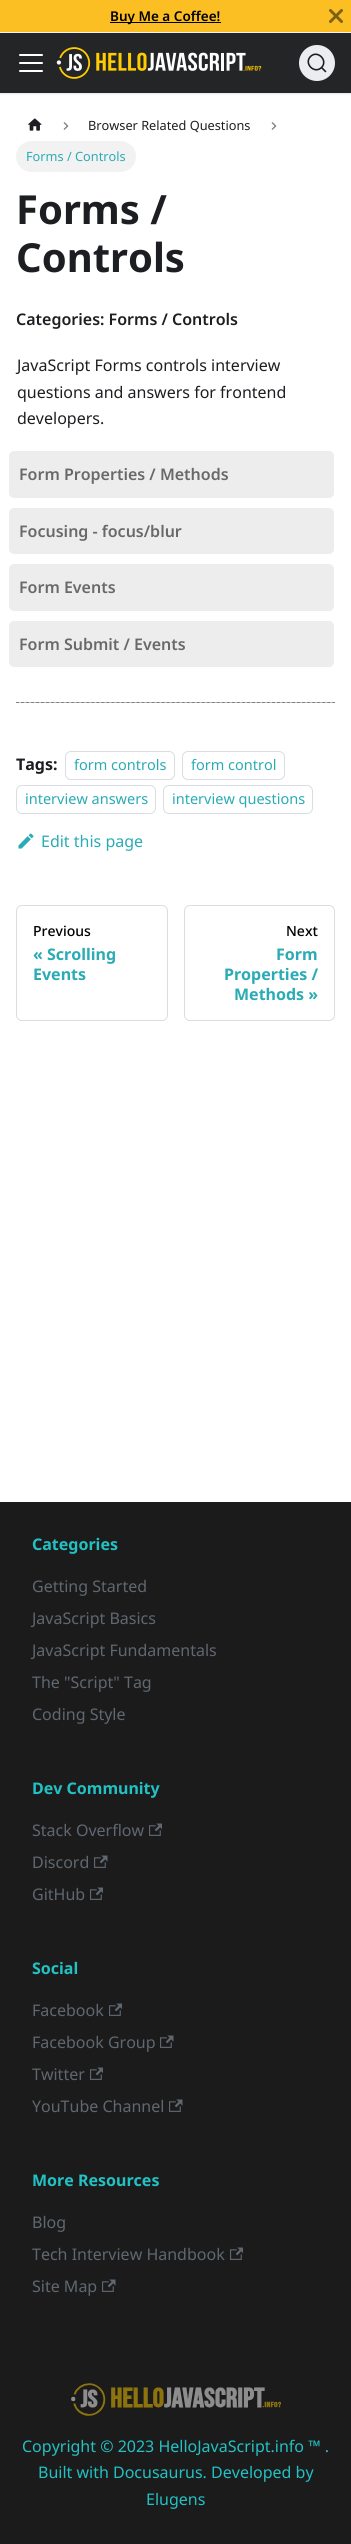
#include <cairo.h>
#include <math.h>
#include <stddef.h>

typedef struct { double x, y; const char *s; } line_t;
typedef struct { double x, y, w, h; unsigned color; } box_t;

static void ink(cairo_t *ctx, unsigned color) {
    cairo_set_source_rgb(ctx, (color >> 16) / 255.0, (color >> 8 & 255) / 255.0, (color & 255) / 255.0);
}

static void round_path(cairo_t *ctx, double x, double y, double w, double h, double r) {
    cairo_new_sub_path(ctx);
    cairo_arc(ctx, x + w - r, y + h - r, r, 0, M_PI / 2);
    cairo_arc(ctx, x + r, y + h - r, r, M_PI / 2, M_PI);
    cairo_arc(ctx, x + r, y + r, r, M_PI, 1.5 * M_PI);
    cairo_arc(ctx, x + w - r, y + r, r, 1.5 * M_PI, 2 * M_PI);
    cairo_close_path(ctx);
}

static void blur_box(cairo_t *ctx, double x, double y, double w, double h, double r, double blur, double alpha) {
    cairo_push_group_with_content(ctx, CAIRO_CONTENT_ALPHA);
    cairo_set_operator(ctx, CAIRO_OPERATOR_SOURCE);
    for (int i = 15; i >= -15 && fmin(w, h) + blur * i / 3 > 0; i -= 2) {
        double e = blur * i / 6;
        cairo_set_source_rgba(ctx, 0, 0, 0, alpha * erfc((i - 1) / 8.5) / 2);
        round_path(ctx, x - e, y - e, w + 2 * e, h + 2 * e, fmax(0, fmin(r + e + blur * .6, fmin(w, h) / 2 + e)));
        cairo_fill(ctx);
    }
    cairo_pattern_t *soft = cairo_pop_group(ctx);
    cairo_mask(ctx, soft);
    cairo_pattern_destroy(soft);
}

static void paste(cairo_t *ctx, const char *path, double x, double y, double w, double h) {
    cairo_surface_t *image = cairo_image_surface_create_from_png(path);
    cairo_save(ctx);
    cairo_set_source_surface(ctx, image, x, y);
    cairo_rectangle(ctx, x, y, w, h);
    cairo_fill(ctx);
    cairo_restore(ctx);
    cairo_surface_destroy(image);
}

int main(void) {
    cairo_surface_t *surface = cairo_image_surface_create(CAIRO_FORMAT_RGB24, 351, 2544);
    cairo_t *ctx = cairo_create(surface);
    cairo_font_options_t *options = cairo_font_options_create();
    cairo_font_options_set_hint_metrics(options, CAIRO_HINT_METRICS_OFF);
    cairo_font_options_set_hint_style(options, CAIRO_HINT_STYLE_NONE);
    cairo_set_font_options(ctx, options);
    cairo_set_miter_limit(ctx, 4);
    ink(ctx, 0xFFFFFF);
    cairo_paint(ctx);
    {
        static const box_t items[] = {
            {0, 0, 351, 32, 0xFBBF24},
            {0, 32, 351, 1, 0xF5F6F7},
            {110, 22, 111, 1, 0x000000},
        };
        for (size_t i = 0; i < sizeof items / sizeof *items; i++) {
            ink(ctx, items[i].color);
            cairo_rectangle(ctx, items[i].x, items[i].y, items[i].w, items[i].h);
            cairo_fill(ctx);
        }
    }
    cairo_select_font_face(ctx, "Noto Sans SemiBold", CAIRO_FONT_SLANT_NORMAL, CAIRO_FONT_WEIGHT_NORMAL);
    cairo_set_font_size(ctx, 13.5);
    cairo_move_to(ctx, 110, 21);
    cairo_show_text(ctx, "Buy Me a Coffee!");
    cairo_save(ctx);
    cairo_rectangle(ctx, 329, 9, 14, 14);
    cairo_clip(ctx);
    cairo_new_path(ctx);
    cairo_move_to(ctx, 329.5, 9.5);
    cairo_line_to(ctx, 342.5, 22.5);
    cairo_move_to(ctx, 342.5, 9.5);
    cairo_line_to(ctx, 329.5, 22.5);
    ink(ctx, 0x7E6012);
    cairo_set_line_width(ctx, 2.9);
    cairo_stroke(ctx);
    cairo_restore(ctx);
    ink(ctx, 0x000000);
    blur_box(ctx, 0, 34, 351, 60, 0, 1, 0.1);
    ink(ctx, 0x242526);
    cairo_rectangle(ctx, 0, 33, 351, 60);
    cairo_fill(ctx);
    paste(ctx, "media/1.png", 19, 54, 24, 18);
    paste(ctx, "media/2.png", 56, 47, 206, 32);
    ink(ctx, 0xEBEDF0);
    cairo_arc(ctx, 317, 63, 18, 0, 2 * M_PI);
    cairo_fill(ctx);
    cairo_new_path(ctx);
    cairo_move_to(ctx, 321.5, 67.5);
    cairo_line_to(ctx, 325.5, 71.5);
    cairo_line_to(ctx, 321.5, 67.5);
    cairo_curve_to(ctx, 314.5, 74.5, 303.5, 63.5, 310.5, 56.5);
    cairo_curve_to(ctx, 317.5, 49.5, 328.5, 60.5, 321.5, 67.5);
    cairo_close_path(ctx);
    ink(ctx, 0x1C1E21);
    cairo_set_line_width(ctx, 1.6);
    cairo_set_line_cap(ctx, CAIRO_LINE_CAP_ROUND);
    cairo_set_line_join(ctx, CAIRO_LINE_JOIN_ROUND);
    cairo_stroke(ctx);
    paste(ctx, "media/3.png", 28, 118, 14, 13);
    paste(ctx, "media/4.png", 63, 122, 6, 8);
    cairo_select_font_face(ctx, "Noto Sans", CAIRO_FONT_SLANT_NORMAL, CAIRO_FONT_WEIGHT_NORMAL);
    cairo_set_font_size(ctx, 12.75);
    cairo_move_to(ctx, 88, 130);
    cairo_show_text(ctx, "Browser Related Questions");
    paste(ctx, "media/4.png", 271, 122, 6, 8);
    ink(ctx, 0xF2F2F2);
    round_path(ctx, 16, 141, 120, 31, 15.5);
    cairo_fill(ctx);
    ink(ctx, 0x2AABB5);
    cairo_move_to(ctx, 26, 161);
    cairo_show_text(ctx, "Forms / Controls");
    cairo_select_font_face(ctx, "Noto Sans", CAIRO_FONT_SLANT_NORMAL, CAIRO_FONT_WEIGHT_BOLD);
    cairo_set_font_size(ctx, 40);
    ink(ctx, 0x1C1E21);
    cairo_move_to(ctx, 16, 224);
    cairo_show_text(ctx, "Forms /");
    cairo_move_to(ctx, 16, 272);
    cairo_show_text(ctx, "Controls");
    cairo_select_font_face(ctx, "Noto Sans SemiBold", CAIRO_FONT_SLANT_NORMAL, CAIRO_FONT_WEIGHT_NORMAL);
    cairo_set_font_size(ctx, 16);
    cairo_move_to(ctx, 16, 325);
    cairo_show_text(ctx, "Categories: Forms / Controls");
    cairo_select_font_face(ctx, "Noto Sans", CAIRO_FONT_SLANT_NORMAL, CAIRO_FONT_WEIGHT_NORMAL);
    {
        static const line_t items[] = {
            {17, 371, "JavaScript Forms controls interview"},
            {17, 398, "questions and answers for frontend"},
            {17, 424, "developers."},
        };
        for (size_t i = 0; i < sizeof items / sizeof *items; i++) {
            cairo_move_to(ctx, items[i].x, items[i].y);
            cairo_show_text(ctx, items[i].s);
        }
    }
    ink(ctx, 0xEDEDED);
    round_path(ctx, 9, 451, 325, 47, 5);
    cairo_fill(ctx);
    cairo_select_font_face(ctx, "Noto Sans SemiBold", CAIRO_FONT_SLANT_NORMAL, CAIRO_FONT_WEIGHT_NORMAL);
    ink(ctx, 0x696969);
    cairo_move_to(ctx, 19, 480);
    cairo_show_text(ctx, "Form Properties / Methods");
    ink(ctx, 0xEDEDED);
    round_path(ctx, 9, 508, 325, 46, 5);
    cairo_fill(ctx);
    ink(ctx, 0x696969);
    cairo_move_to(ctx, 19, 537);
    cairo_show_text(ctx, "Focusing - focus/blur");
    ink(ctx, 0xEDEDED);
    round_path(ctx, 9, 564, 325, 47, 5);
    cairo_fill(ctx);
    ink(ctx, 0x696969);
    cairo_move_to(ctx, 19, 593);
    cairo_show_text(ctx, "Form Events");
    ink(ctx, 0xEDEDED);
    round_path(ctx, 9, 621, 325, 46, 5);
    cairo_fill(ctx);
    ink(ctx, 0x696969);
    cairo_move_to(ctx, 19, 650);
    cairo_show_text(ctx, "Form Submit / Events");
    ink(ctx, 0xBEC3C9);
    cairo_rectangle(ctx, 16, 702, 319, 1);
    cairo_fill(ctx);
    cairo_new_path(ctx);
    cairo_move_to(ctx, 16, 702.5);
    cairo_line_to(ctx, 335, 702.5);
    ink(ctx, 0x808080);
    cairo_set_line_width(ctx, 1);
    cairo_set_line_cap(ctx, CAIRO_LINE_CAP_BUTT);
    cairo_set_line_join(ctx, CAIRO_LINE_JOIN_MITER);
    cairo_set_dash(ctx, (double[]){3, 2.02}, 2, 0);
    cairo_stroke(ctx);
    cairo_select_font_face(ctx, "Noto Sans", CAIRO_FONT_SLANT_NORMAL, CAIRO_FONT_WEIGHT_BOLD);
    ink(ctx, 0x1C1E21);
    cairo_move_to(ctx, 16, 770);
    cairo_show_text(ctx, "Tags:");
    round_path(ctx, 65.5, 751.5, 109, 28, 5.5);
    ink(ctx, 0xDADDE1);
    cairo_set_dash(ctx, NULL, 0, 0);
    cairo_stroke(ctx);
    cairo_select_font_face(ctx, "Noto Sans", CAIRO_FONT_SLANT_NORMAL, CAIRO_FONT_WEIGHT_NORMAL);
    cairo_set_font_size(ctx, 14.5);
    ink(ctx, 0x2AABB5);
    cairo_move_to(ctx, 74, 770);
    cairo_show_text(ctx, "form controls");
    round_path(ctx, 182.5, 751.5, 102, 28, 5.5);
    ink(ctx, 0xDADDE1);
    cairo_stroke(ctx);
    ink(ctx, 0x2AABB5);
    cairo_move_to(ctx, 191, 770);
    cairo_show_text(ctx, "form control");
    round_path(ctx, 16.5, 785.5, 139, 28, 5.5);
    ink(ctx, 0xDADDE1);
    cairo_stroke(ctx);
    ink(ctx, 0x2AABB5);
    cairo_move_to(ctx, 25, 804);
    cairo_show_text(ctx, "interview answers");
    round_path(ctx, 163.5, 785.5, 149, 28, 5.5);
    ink(ctx, 0xDADDE1);
    cairo_stroke(ctx);
    ink(ctx, 0x2AABB5);
    cairo_move_to(ctx, 172, 804);
    cairo_show_text(ctx, "interview questions");
    paste(ctx, "media/5.png", 18, 833, 16, 16);
    cairo_set_font_size(ctx, 16);
    cairo_move_to(ctx, 41, 847);
    cairo_show_text(ctx, "Edit this page");
    round_path(ctx, 16.5, 905.5, 151, 115, 5.5);
    ink(ctx, 0xDADDE1);
    cairo_stroke(ctx);
    cairo_select_font_face(ctx, "Noto Sans Medium", CAIRO_FONT_SLANT_NORMAL, CAIRO_FONT_WEIGHT_NORMAL);
    cairo_set_font_size(ctx, 14);
    ink(ctx, 0x000000);
    cairo_move_to(ctx, 33, 936);
    cairo_show_text(ctx, "Previous");
    cairo_select_font_face(ctx, "Noto Sans", CAIRO_FONT_SLANT_NORMAL, CAIRO_FONT_WEIGHT_BOLD);
    cairo_set_font_size(ctx, 16);
    ink(ctx, 0x2AABB5);
    cairo_move_to(ctx, 33, 960);
    cairo_show_text(ctx, "« Scrolling");
    cairo_move_to(ctx, 33, 980);
    cairo_show_text(ctx, "Events");
    round_path(ctx, 184.5, 905.5, 150, 115, 5.5);
    ink(ctx, 0xDADDE1);
    cairo_stroke(ctx);
    cairo_select_font_face(ctx, "Noto Sans Medium", CAIRO_FONT_SLANT_NORMAL, CAIRO_FONT_WEIGHT_NORMAL);
    cairo_set_font_size(ctx, 14);
    ink(ctx, 0x000000);
    cairo_move_to(ctx, 286, 936);
    cairo_show_text(ctx, "Next");
    cairo_select_font_face(ctx, "Noto Sans", CAIRO_FONT_SLANT_NORMAL, CAIRO_FONT_WEIGHT_BOLD);
    cairo_set_font_size(ctx, 16);
    ink(ctx, 0x2AABB5);
    {
        static const line_t items[] = {
            {276, 960, "Form"},
            {224, 980, "Properties /"},
            {234, 1000, "Methods »"},
        };
        for (size_t i = 0; i < sizeof items / sizeof *items; i++) {
            cairo_move_to(ctx, items[i].x, items[i].y);
            cairo_show_text(ctx, items[i].s);
        }
    }
    ink(ctx, 0x1B1B1B);
    cairo_rectangle(ctx, 0, 1502, 351, 1042);
    cairo_fill(ctx);
    ink(ctx, 0x22C1C3);
    cairo_move_to(ctx, 32, 1550);
    cairo_show_text(ctx, "Categories");
    cairo_select_font_face(ctx, "Noto Sans", CAIRO_FONT_SLANT_NORMAL, CAIRO_FONT_WEIGHT_NORMAL);
    ink(ctx, 0x606770);
    {
        static const line_t items[] = {
            {32, 1592, "Getting Started"},
            {32, 1624, "JavaScript Basics"},
            {32, 1656, "JavaScript Fundamentals"},
            {32, 1688, "The \"Script\" Tag"},
            {32, 1720, "Coding Style"},
        };
        for (size_t i = 0; i < sizeof items / sizeof *items; i++) {
            cairo_move_to(ctx, items[i].x, items[i].y);
            cairo_show_text(ctx, items[i].s);
        }
    }
    cairo_select_font_face(ctx, "Noto Sans", CAIRO_FONT_SLANT_NORMAL, CAIRO_FONT_WEIGHT_BOLD);
    ink(ctx, 0x22C1C3);
    cairo_move_to(ctx, 32, 1794);
    cairo_show_text(ctx, "Dev Community");
    cairo_select_font_face(ctx, "Noto Sans", CAIRO_FONT_SLANT_NORMAL, CAIRO_FONT_WEIGHT_NORMAL);
    ink(ctx, 0x606770);
    cairo_move_to(ctx, 32, 1836);
    cairo_show_text(ctx, "Stack Overflow");
    paste(ctx, "media/6.png", 149, 1823, 13, 13);
    cairo_move_to(ctx, 32, 1868);
    cairo_show_text(ctx, "Discord");
    paste(ctx, "media/7.png", 94, 1855, 14, 13);
    cairo_move_to(ctx, 32, 1900);
    cairo_show_text(ctx, "GitHub");
    paste(ctx, "media/6.png", 90, 1887, 13, 13);
    cairo_select_font_face(ctx, "Noto Sans", CAIRO_FONT_SLANT_NORMAL, CAIRO_FONT_WEIGHT_BOLD);
    ink(ctx, 0x22C1C3);
    cairo_move_to(ctx, 32, 1974);
    cairo_show_text(ctx, "Social");
    cairo_select_font_face(ctx, "Noto Sans", CAIRO_FONT_SLANT_NORMAL, CAIRO_FONT_WEIGHT_NORMAL);
    ink(ctx, 0x606770);
    cairo_move_to(ctx, 32, 2016);
    cairo_show_text(ctx, "Facebook");
    paste(ctx, "media/6.png", 109, 2003, 13, 13);
    cairo_move_to(ctx, 32, 2048);
    cairo_show_text(ctx, "Facebook Group");
    paste(ctx, "media/7.png", 160, 2035, 14, 13);
    cairo_move_to(ctx, 32, 2080);
    cairo_show_text(ctx, "Twitter");
    paste(ctx, "media/6.png", 90, 2067, 13, 13);
    cairo_move_to(ctx, 32, 2112);
    cairo_show_text(ctx, "YouTube Channel");
    paste(ctx, "media/7.png", 169, 2099, 14, 13);
    cairo_select_font_face(ctx, "Noto Sans", CAIRO_FONT_SLANT_NORMAL, CAIRO_FONT_WEIGHT_BOLD);
    ink(ctx, 0x22C1C3);
    cairo_move_to(ctx, 32, 2186);
    cairo_show_text(ctx, "More Resources");
    cairo_select_font_face(ctx, "Noto Sans", CAIRO_FONT_SLANT_NORMAL, CAIRO_FONT_WEIGHT_NORMAL);
    ink(ctx, 0x606770);
    cairo_move_to(ctx, 32, 2228);
    cairo_show_text(ctx, "Blog");
    cairo_move_to(ctx, 32, 2260);
    cairo_show_text(ctx, "Tech Interview Handbook");
    paste(ctx, "media/6.png", 230, 2247, 13, 13);
    cairo_move_to(ctx, 32, 2292);
    cairo_show_text(ctx, "Site Map");
    paste(ctx, "media/7.png", 102, 2279, 14, 13);
    paste(ctx, "media/8.png", 71, 2383, 210, 33);
    ink(ctx, 0x22C1C3);
    {
        static const line_t items[] = {
            {22, 2452, "Copyright © 2023 HelloJavaScript.info ™ ."},
            {38, 2478, "Built with Docusaurus. Developed by"},
            {146, 2505, "Elugens"},
        };
        for (size_t i = 0; i < sizeof items / sizeof *items; i++) {
            cairo_move_to(ctx, items[i].x, items[i].y);
            cairo_show_text(ctx, items[i].s);
        }
    }
    cairo_surface_write_to_png(surface, "image.png");
    cairo_font_options_destroy(options);
    cairo_destroy(ctx);
    cairo_surface_destroy(surface);
    return 0;
}
